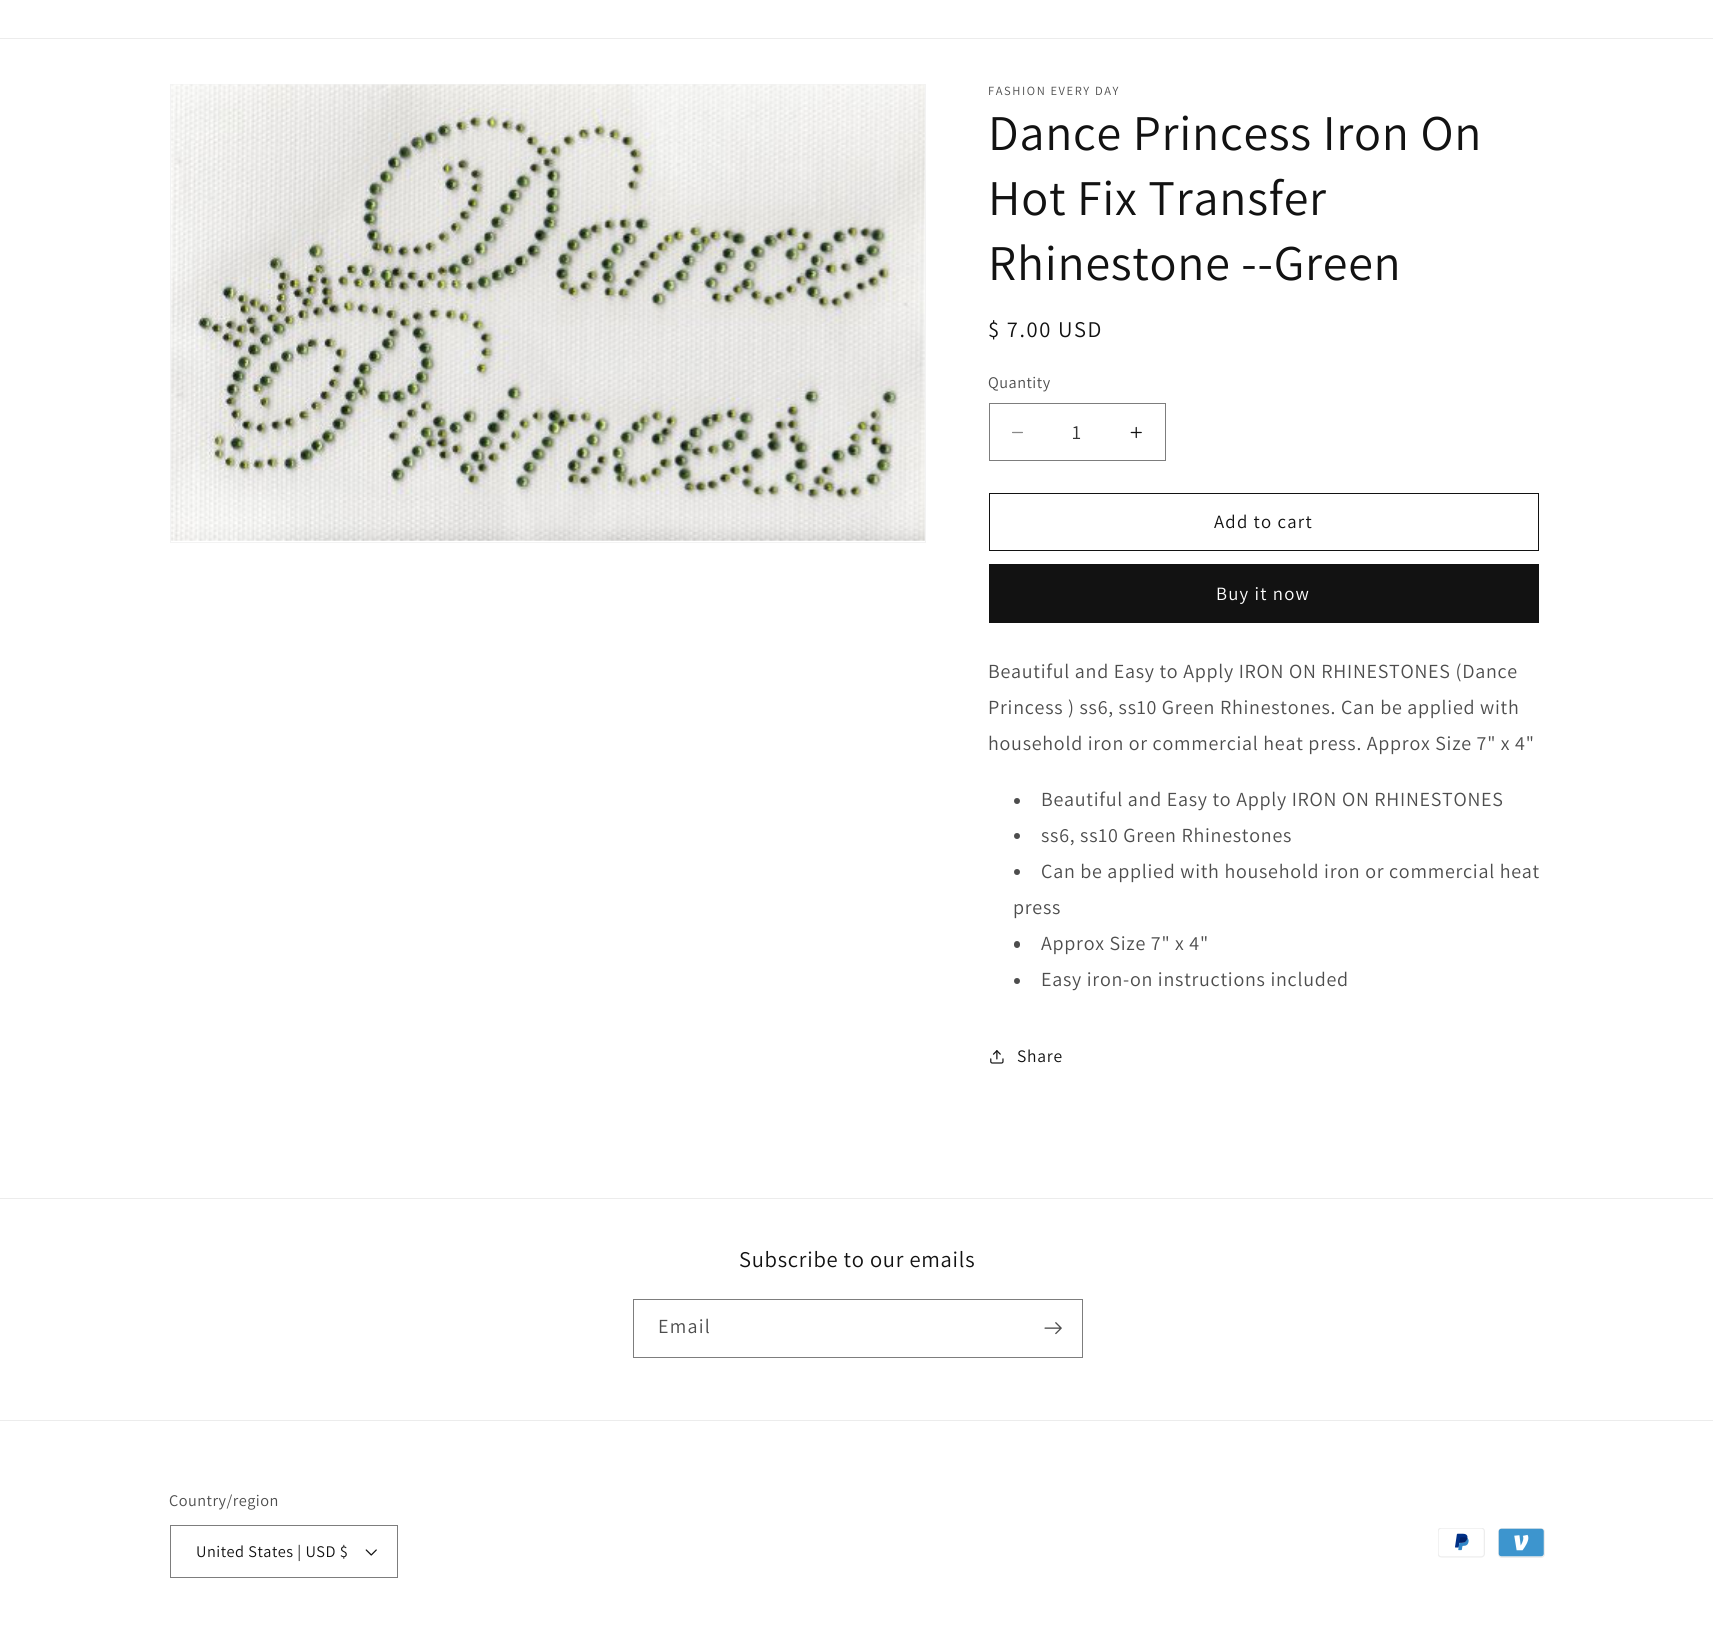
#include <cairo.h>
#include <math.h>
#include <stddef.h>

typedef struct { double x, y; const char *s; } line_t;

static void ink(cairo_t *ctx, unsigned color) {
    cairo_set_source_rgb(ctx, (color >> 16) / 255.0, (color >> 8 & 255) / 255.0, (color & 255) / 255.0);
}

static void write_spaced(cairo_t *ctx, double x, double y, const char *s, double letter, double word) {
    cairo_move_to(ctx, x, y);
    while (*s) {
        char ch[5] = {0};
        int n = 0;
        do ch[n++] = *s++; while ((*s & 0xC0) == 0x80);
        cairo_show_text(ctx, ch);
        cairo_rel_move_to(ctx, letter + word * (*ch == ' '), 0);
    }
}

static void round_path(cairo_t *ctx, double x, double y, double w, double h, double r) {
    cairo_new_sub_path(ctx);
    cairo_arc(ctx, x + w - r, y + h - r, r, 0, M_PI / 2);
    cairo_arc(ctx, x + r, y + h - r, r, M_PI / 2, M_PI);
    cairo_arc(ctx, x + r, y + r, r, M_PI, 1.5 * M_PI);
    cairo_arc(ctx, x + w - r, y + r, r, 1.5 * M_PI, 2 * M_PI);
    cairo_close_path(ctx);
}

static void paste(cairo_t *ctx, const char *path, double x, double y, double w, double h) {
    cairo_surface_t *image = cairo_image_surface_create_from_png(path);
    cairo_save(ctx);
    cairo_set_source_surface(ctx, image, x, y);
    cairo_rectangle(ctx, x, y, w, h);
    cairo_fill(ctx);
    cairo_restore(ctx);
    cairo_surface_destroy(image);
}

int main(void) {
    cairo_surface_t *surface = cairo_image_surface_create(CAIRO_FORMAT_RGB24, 1713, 1635);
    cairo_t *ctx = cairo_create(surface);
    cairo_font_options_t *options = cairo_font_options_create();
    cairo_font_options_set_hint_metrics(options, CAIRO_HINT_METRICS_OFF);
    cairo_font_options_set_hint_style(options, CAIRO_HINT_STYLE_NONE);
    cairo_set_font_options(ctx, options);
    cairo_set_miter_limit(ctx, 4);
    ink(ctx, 0xFFFFFF);
    cairo_paint(ctx);
    ink(ctx, 0xECECEC);
    cairo_rectangle(ctx, 0, 38, 1713, 1);
    cairo_fill(ctx);
    cairo_rectangle(ctx, 170.5, 84.5, 755, 458);
    ink(ctx, 0xF3F3F3);
    cairo_set_line_width(ctx, 1);
    cairo_stroke(ctx);
    paste(ctx, "media/1.png", 171, 84, 754, 457);
    cairo_select_font_face(ctx, "Assistant", CAIRO_FONT_SLANT_NORMAL, CAIRO_FONT_WEIGHT_NORMAL);
    cairo_set_font_size(ctx, 12.5);
    ink(ctx, 0x4D4D4D);
    write_spaced(ctx, 988, 95, "FASHION EVERY DAY", 1.6, 0);
    cairo_set_font_size(ctx, 50);
    ink(ctx, 0x121212);
    {
        static const line_t items[] = {
            {988, 150, "Dance Princess Iron On"},
            {988, 215, "Hot Fix Transfer"},
            {988, 280, "Rhinestone --Green"},
        };
        for (size_t i = 0; i < sizeof items / sizeof *items; i++) {
            write_spaced(ctx, items[i].x, items[i].y, items[i].s, 0.75, 0);
        }
    }
    cairo_set_font_size(ctx, 22.5);
    write_spaced(ctx, 988, 337, "$ 7.00 USD", 1.6, 0);
    cairo_set_font_size(ctx, 16.25);
    ink(ctx, 0x4D4D4D);
    write_spaced(ctx, 988, 388, "Quantity", 0.5, 0);
    paste(ctx, "media/2.png", 1012, 431, 11, 3);
    paste(ctx, "media/3.png", 1130, 426, 12, 13);
    cairo_rectangle(ctx, 989.5, 403.5, 176, 57);
    ink(ctx, 0x7D7D7D);
    cairo_stroke(ctx);
    cairo_set_font_size(ctx, 20);
    ink(ctx, 0x363636);
    cairo_move_to(ctx, 1072, 439);
    cairo_show_text(ctx, "1");
    cairo_rectangle(ctx, 989.5, 493.5, 549, 57);
    ink(ctx, 0x121212);
    cairo_stroke(ctx);
    cairo_set_font_size(ctx, 18.75);
    write_spaced(ctx, 1214, 528, "Add to cart", 1.25, 0);
    cairo_rectangle(ctx, 989, 564, 550, 59);
    cairo_fill(ctx);
    ink(ctx, 0xFFFFFF);
    write_spaced(ctx, 1216, 600, "Buy it now", 1.25, 0);
    cairo_set_font_size(ctx, 20);
    ink(ctx, 0x4D4D4D);
    {
        static const line_t items[] = {
            {988, 678, "Beautiful and Easy to Apply IRON ON RHINESTONES (Dance"},
            {988, 714, "Princess ) ss6, ss10 Green Rhinestones. Can be applied with"},
            {988, 750, "household iron or commercial heat press. Approx Size 7\" x 4\""},
        };
        for (size_t i = 0; i < sizeof items / sizeof *items; i++) {
            write_spaced(ctx, items[i].x, items[i].y, items[i].s, 0.75, 0);
        }
    }
    cairo_new_path(ctx);
    cairo_arc(ctx, 1017, 801, 3, 0, 2 * M_PI);
    cairo_fill(ctx);
    write_spaced(ctx, 1041, 806, "Beautiful and Easy to Apply IRON ON RHINESTONES", 0.75, 0);
    cairo_new_path(ctx);
    cairo_arc(ctx, 1017, 836, 3, 0, 2 * M_PI);
    cairo_fill(ctx);
    write_spaced(ctx, 1041, 842, "ss6, ss10 Green Rhinestones", 0.75, 0);
    cairo_new_path(ctx);
    cairo_arc(ctx, 1017, 872, 3, 0, 2 * M_PI);
    cairo_fill(ctx);
    write_spaced(ctx, 1041, 878, "Can be applied with household iron or commercial heat", 0.75, 0);
    write_spaced(ctx, 1013, 914, "press", 0.75, 0);
    round_path(ctx, 1014, 941, 6, 7, 3);
    cairo_fill(ctx);
    write_spaced(ctx, 1041, 950, "Approx Size 7\" x 4\"", 0.75, 0);
    cairo_new_path(ctx);
    cairo_arc(ctx, 1017, 981, 3, 0, 2 * M_PI);
    cairo_fill(ctx);
    write_spaced(ctx, 1041, 986, "Easy iron-on instructions included", 0.75, 0);
    paste(ctx, "media/4.png", 990, 1050, 14, 14);
    cairo_set_font_size(ctx, 17.5);
    ink(ctx, 0x121212);
    write_spaced(ctx, 1017, 1062, "Share", 0.75, 0);
    ink(ctx, 0xECECEC);
    cairo_rectangle(ctx, 0, 1198, 1713, 1);
    cairo_fill(ctx);
    cairo_set_font_size(ctx, 22.5);
    ink(ctx, 0x121212);
    write_spaced(ctx, 739, 1267, "Subscribe to our emails", 0.75, 0);
    cairo_rectangle(ctx, 633.5, 1299.5, 449, 58);
    ink(ctx, 0x7D7D7D);
    cairo_stroke(ctx);
    cairo_set_font_size(ctx, 20);
    ink(ctx, 0x4D4D4D);
    write_spaced(ctx, 658, 1333, "Email", 1.25, 0);
    paste(ctx, "media/5.png", 1044, 1322, 18, 13);
    ink(ctx, 0xECECEC);
    cairo_rectangle(ctx, 0, 1420, 1713, 1);
    cairo_fill(ctx);
    cairo_set_font_size(ctx, 16.25);
    ink(ctx, 0x4D4D4D);
    write_spaced(ctx, 169, 1506, "Country/region", 0.5, 0);
    paste(ctx, "media/6.png", 365, 1549, 12, 7);
    cairo_rectangle(ctx, 170.5, 1525.5, 227, 52);
    ink(ctx, 0x7D7D7D);
    cairo_stroke(ctx);
    ink(ctx, 0x121212);
    write_spaced(ctx, 196, 1557, "United States | USD $", 0.5, 0);
    paste(ctx, "media/7.png", 1438, 1528, 47, 30);
    paste(ctx, "media/8.png", 1498, 1528, 47, 30);
    cairo_surface_write_to_png(surface, "image.png");
    cairo_font_options_destroy(options);
    cairo_destroy(ctx);
    cairo_surface_destroy(surface);
    return 0;
}
